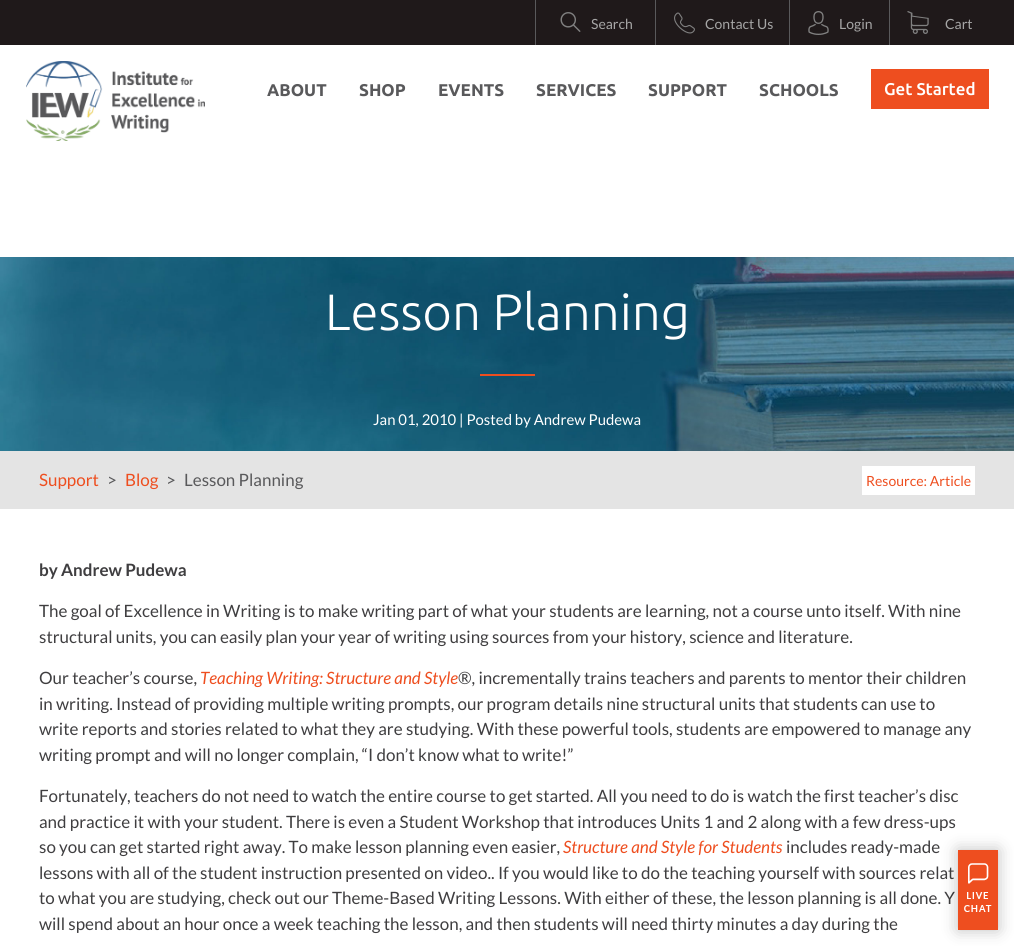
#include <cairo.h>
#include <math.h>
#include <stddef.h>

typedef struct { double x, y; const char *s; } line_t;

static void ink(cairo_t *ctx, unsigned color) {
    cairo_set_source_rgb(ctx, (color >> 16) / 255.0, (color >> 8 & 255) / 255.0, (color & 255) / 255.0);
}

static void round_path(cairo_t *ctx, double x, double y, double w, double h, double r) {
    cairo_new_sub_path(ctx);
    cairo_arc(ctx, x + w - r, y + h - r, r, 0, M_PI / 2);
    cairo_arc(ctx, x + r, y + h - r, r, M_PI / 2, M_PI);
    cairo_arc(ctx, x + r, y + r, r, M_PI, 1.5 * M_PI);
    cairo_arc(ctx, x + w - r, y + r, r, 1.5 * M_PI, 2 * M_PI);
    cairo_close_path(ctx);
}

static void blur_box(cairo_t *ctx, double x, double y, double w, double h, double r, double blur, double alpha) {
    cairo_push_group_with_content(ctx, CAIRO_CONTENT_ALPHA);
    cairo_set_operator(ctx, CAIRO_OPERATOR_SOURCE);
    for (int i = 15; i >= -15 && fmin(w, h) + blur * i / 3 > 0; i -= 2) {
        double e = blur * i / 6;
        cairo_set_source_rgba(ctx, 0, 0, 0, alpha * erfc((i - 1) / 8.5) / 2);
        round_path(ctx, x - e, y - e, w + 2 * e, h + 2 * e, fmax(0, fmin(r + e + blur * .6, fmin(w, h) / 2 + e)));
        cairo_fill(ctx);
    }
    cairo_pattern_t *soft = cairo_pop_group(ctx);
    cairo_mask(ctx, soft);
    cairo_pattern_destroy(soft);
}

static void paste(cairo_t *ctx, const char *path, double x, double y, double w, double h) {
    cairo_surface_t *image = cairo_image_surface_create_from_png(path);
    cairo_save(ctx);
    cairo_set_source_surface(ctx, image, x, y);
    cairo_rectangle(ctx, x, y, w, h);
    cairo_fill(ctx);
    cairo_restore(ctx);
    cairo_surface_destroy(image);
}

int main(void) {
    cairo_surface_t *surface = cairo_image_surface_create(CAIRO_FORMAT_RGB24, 1014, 946);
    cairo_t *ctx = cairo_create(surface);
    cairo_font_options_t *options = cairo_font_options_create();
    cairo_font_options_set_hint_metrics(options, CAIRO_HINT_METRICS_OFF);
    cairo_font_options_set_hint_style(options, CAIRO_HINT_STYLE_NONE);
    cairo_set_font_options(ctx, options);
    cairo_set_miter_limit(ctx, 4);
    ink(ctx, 0xFFFFFF);
    cairo_paint(ctx);
    ink(ctx, 0x1F191A);
    cairo_rectangle(ctx, 0, 0, 1014, 45);
    cairo_fill(ctx);
    ink(ctx, 0x59595B);
    cairo_rectangle(ctx, 535, 0, 1, 45);
    cairo_fill(ctx);
    paste(ctx, "media/1.png", 560, 12, 21, 20);
    cairo_select_font_face(ctx, "Lato", CAIRO_FONT_SLANT_NORMAL, CAIRO_FONT_WEIGHT_NORMAL);
    cairo_set_font_size(ctx, 14);
    ink(ctx, 0xA6A6A6);
    cairo_move_to(ctx, 591, 29);
    cairo_show_text(ctx, "Search");
    ink(ctx, 0x59595B);
    cairo_rectangle(ctx, 655, 0, 1, 45);
    cairo_fill(ctx);
    paste(ctx, "media/2.png", 674, 12, 21, 22);
    ink(ctx, 0xA6A6A6);
    cairo_move_to(ctx, 705, 29);
    cairo_show_text(ctx, "Contact Us");
    ink(ctx, 0x59595B);
    cairo_rectangle(ctx, 789, 0, 1, 45);
    cairo_fill(ctx);
    paste(ctx, "media/3.png", 808, 11, 21, 24);
    ink(ctx, 0xA6A6A6);
    cairo_move_to(ctx, 839, 29);
    cairo_show_text(ctx, "Login");
    ink(ctx, 0x59595B);
    cairo_rectangle(ctx, 889, 0, 1, 45);
    cairo_fill(ctx);
    paste(ctx, "media/4.png", 907, 11, 22, 23);
    ink(ctx, 0xA6A6A6);
    cairo_move_to(ctx, 945, 29);
    cairo_show_text(ctx, "Cart");
    paste(ctx, "media/5.png", 26, 61, 179, 80);
    cairo_select_font_face(ctx, "Ubuntu", CAIRO_FONT_SLANT_NORMAL, CAIRO_FONT_WEIGHT_BOLD);
    cairo_set_font_size(ctx, 17);
    ink(ctx, 0x59595B);
    {
        static const line_t items[] = {
            {267, 96, "ABOUT"},
            {359, 96, "SHOP"},
            {438, 96, "EVENTS"},
            {536, 96, "SERVICES"},
            {648, 96, "SUPPORT"},
            {759, 96, "SCHOOLS"},
        };
        for (size_t i = 0; i < sizeof items / sizeof *items; i++) {
            cairo_move_to(ctx, items[i].x, items[i].y);
            cairo_show_text(ctx, items[i].s);
        }
    }
    ink(ctx, 0xEE4E1F);
    cairo_rectangle(ctx, 871, 69, 118, 40);
    cairo_fill(ctx);
    cairo_select_font_face(ctx, "Ubuntu Medium", CAIRO_FONT_SLANT_NORMAL, CAIRO_FONT_WEIGHT_NORMAL);
    ink(ctx, 0xFFFFFF);
    cairo_move_to(ctx, 884, 95);
    cairo_show_text(ctx, "Get Started");
    paste(ctx, "media/6.png", 0, 257, 1014, 194);
    cairo_select_font_face(ctx, "Ubuntu Light", CAIRO_FONT_SLANT_NORMAL, CAIRO_FONT_WEIGHT_NORMAL);
    cairo_set_font_size(ctx, 51);
    cairo_move_to(ctx, 325, 330);
    cairo_show_text(ctx, "Lesson Planning");
    ink(ctx, 0xEE4E1F);
    cairo_rectangle(ctx, 480, 374, 55, 2);
    cairo_fill(ctx);
    cairo_select_font_face(ctx, "Lato", CAIRO_FONT_SLANT_NORMAL, CAIRO_FONT_WEIGHT_NORMAL);
    cairo_set_font_size(ctx, 14.9);
    ink(ctx, 0xFFFFFF);
    cairo_move_to(ctx, 373, 425);
    cairo_show_text(ctx, "Jan 01, 2010 | Posted by Andrew Pudewa");
    ink(ctx, 0xE4E4E4);
    cairo_rectangle(ctx, 0, 451, 1014, 58);
    cairo_fill(ctx);
    cairo_set_font_size(ctx, 17);
    ink(ctx, 0xEE4E1F);
    cairo_move_to(ctx, 39, 486);
    cairo_show_text(ctx, "Support");
    ink(ctx, 0x59595B);
    cairo_move_to(ctx, 107, 486);
    cairo_show_text(ctx, ">");
    ink(ctx, 0xEE4E1F);
    cairo_move_to(ctx, 125, 486);
    cairo_show_text(ctx, "Blog");
    ink(ctx, 0x59595B);
    cairo_move_to(ctx, 166, 486);
    cairo_show_text(ctx, ">");
    cairo_move_to(ctx, 184, 486);
    cairo_show_text(ctx, "Lesson Planning");
    ink(ctx, 0xFFFFFF);
    cairo_rectangle(ctx, 862, 466, 113, 29);
    cairo_fill(ctx);
    cairo_set_font_size(ctx, 14);
    ink(ctx, 0xEE4E1F);
    cairo_move_to(ctx, 866, 486);
    cairo_show_text(ctx, "Resource: Article");
    cairo_select_font_face(ctx, "Lato", CAIRO_FONT_SLANT_NORMAL, CAIRO_FONT_WEIGHT_BOLD);
    cairo_set_font_size(ctx, 17);
    ink(ctx, 0x3F3E40);
    cairo_move_to(ctx, 39, 576);
    cairo_show_text(ctx, "by Andrew Pudewa");
    cairo_select_font_face(ctx, "Lato", CAIRO_FONT_SLANT_NORMAL, CAIRO_FONT_WEIGHT_NORMAL);
    {
        static const line_t items[] = {
            {39, 617, "The goal of Excellence in Writing is to make writing part of what your students are learning, not a course unto itself. With nine"},
            {39, 643, "structural units, you can easily plan your year of writing using sources from your history, science and literature."},
            {39, 684, "Our teacher’s course,"},
        };
        for (size_t i = 0; i < sizeof items / sizeof *items; i++) {
            cairo_move_to(ctx, items[i].x, items[i].y);
            cairo_show_text(ctx, items[i].s);
        }
    }
    cairo_select_font_face(ctx, "Lato", CAIRO_FONT_SLANT_ITALIC, CAIRO_FONT_WEIGHT_NORMAL);
    ink(ctx, 0xEE4E1F);
    cairo_move_to(ctx, 200, 684);
    cairo_show_text(ctx, "Teaching Writing: Structure and Style");
    cairo_select_font_face(ctx, "Lato", CAIRO_FONT_SLANT_NORMAL, CAIRO_FONT_WEIGHT_NORMAL);
    ink(ctx, 0x3F3E40);
    {
        static const line_t items[] = {
            {458, 684, "®, incrementally trains teachers and parents to mentor their children"},
            {39, 710, "in writing. Instead of providing multiple writing prompts, our program details nine structural units that students can use to"},
            {39, 735, "write reports and stories related to what they are studying. With these powerful tools, students are empowered to manage any"},
            {39, 761, "writing prompt and will no longer complain, “I don’t know what to write!”"},
            {39, 802, "Fortunately, teachers do not need to watch the entire course to get started. All you need to do is watch the first teacher’s disc"},
            {39, 828, "and practice it with your student. There is even a Student Workshop that introduces Units 1 and 2 along with a few dress-ups"},
            {39, 853, "so you can get started right away. To make lesson planning even easier,"},
        };
        for (size_t i = 0; i < sizeof items / sizeof *items; i++) {
            cairo_move_to(ctx, items[i].x, items[i].y);
            cairo_show_text(ctx, items[i].s);
        }
    }
    cairo_select_font_face(ctx, "Lato", CAIRO_FONT_SLANT_ITALIC, CAIRO_FONT_WEIGHT_NORMAL);
    ink(ctx, 0xEE4E1F);
    cairo_move_to(ctx, 563, 853);
    cairo_show_text(ctx, "Structure and Style for Students");
    cairo_select_font_face(ctx, "Lato", CAIRO_FONT_SLANT_NORMAL, CAIRO_FONT_WEIGHT_NORMAL);
    ink(ctx, 0x3F3E40);
    {
        static const line_t items[] = {
            {786, 853, "includes ready-made"},
            {39, 879, "lessons with all of the student instruction presented on video.. If you would like to do the teaching yourself with sources relat"},
            {39, 904, "to what you are studying, check out our Theme-Based Writing Lessons. With either of these, the lesson planning is all done. Y"},
            {39, 930, "will spend about an hour once a week teaching the lesson, and then students will need thirty minutes a day during the"},
        };
        for (size_t i = 0; i < sizeof items / sizeof *items; i++) {
            cairo_move_to(ctx, items[i].x, items[i].y);
            cairo_show_text(ctx, items[i].s);
        }
    }
    ink(ctx, 0x000000);
    blur_box(ctx, 958, 850, 40, 80, 0, 8, 0.25);
    ink(ctx, 0xEE4E1F);
    cairo_rectangle(ctx, 958, 850, 40, 80);
    cairo_fill(ctx);
    paste(ctx, "media/7.png", 964, 863, 28, 49);
    cairo_surface_write_to_png(surface, "image.png");
    cairo_font_options_destroy(options);
    cairo_destroy(ctx);
    cairo_surface_destroy(surface);
    return 0;
}
